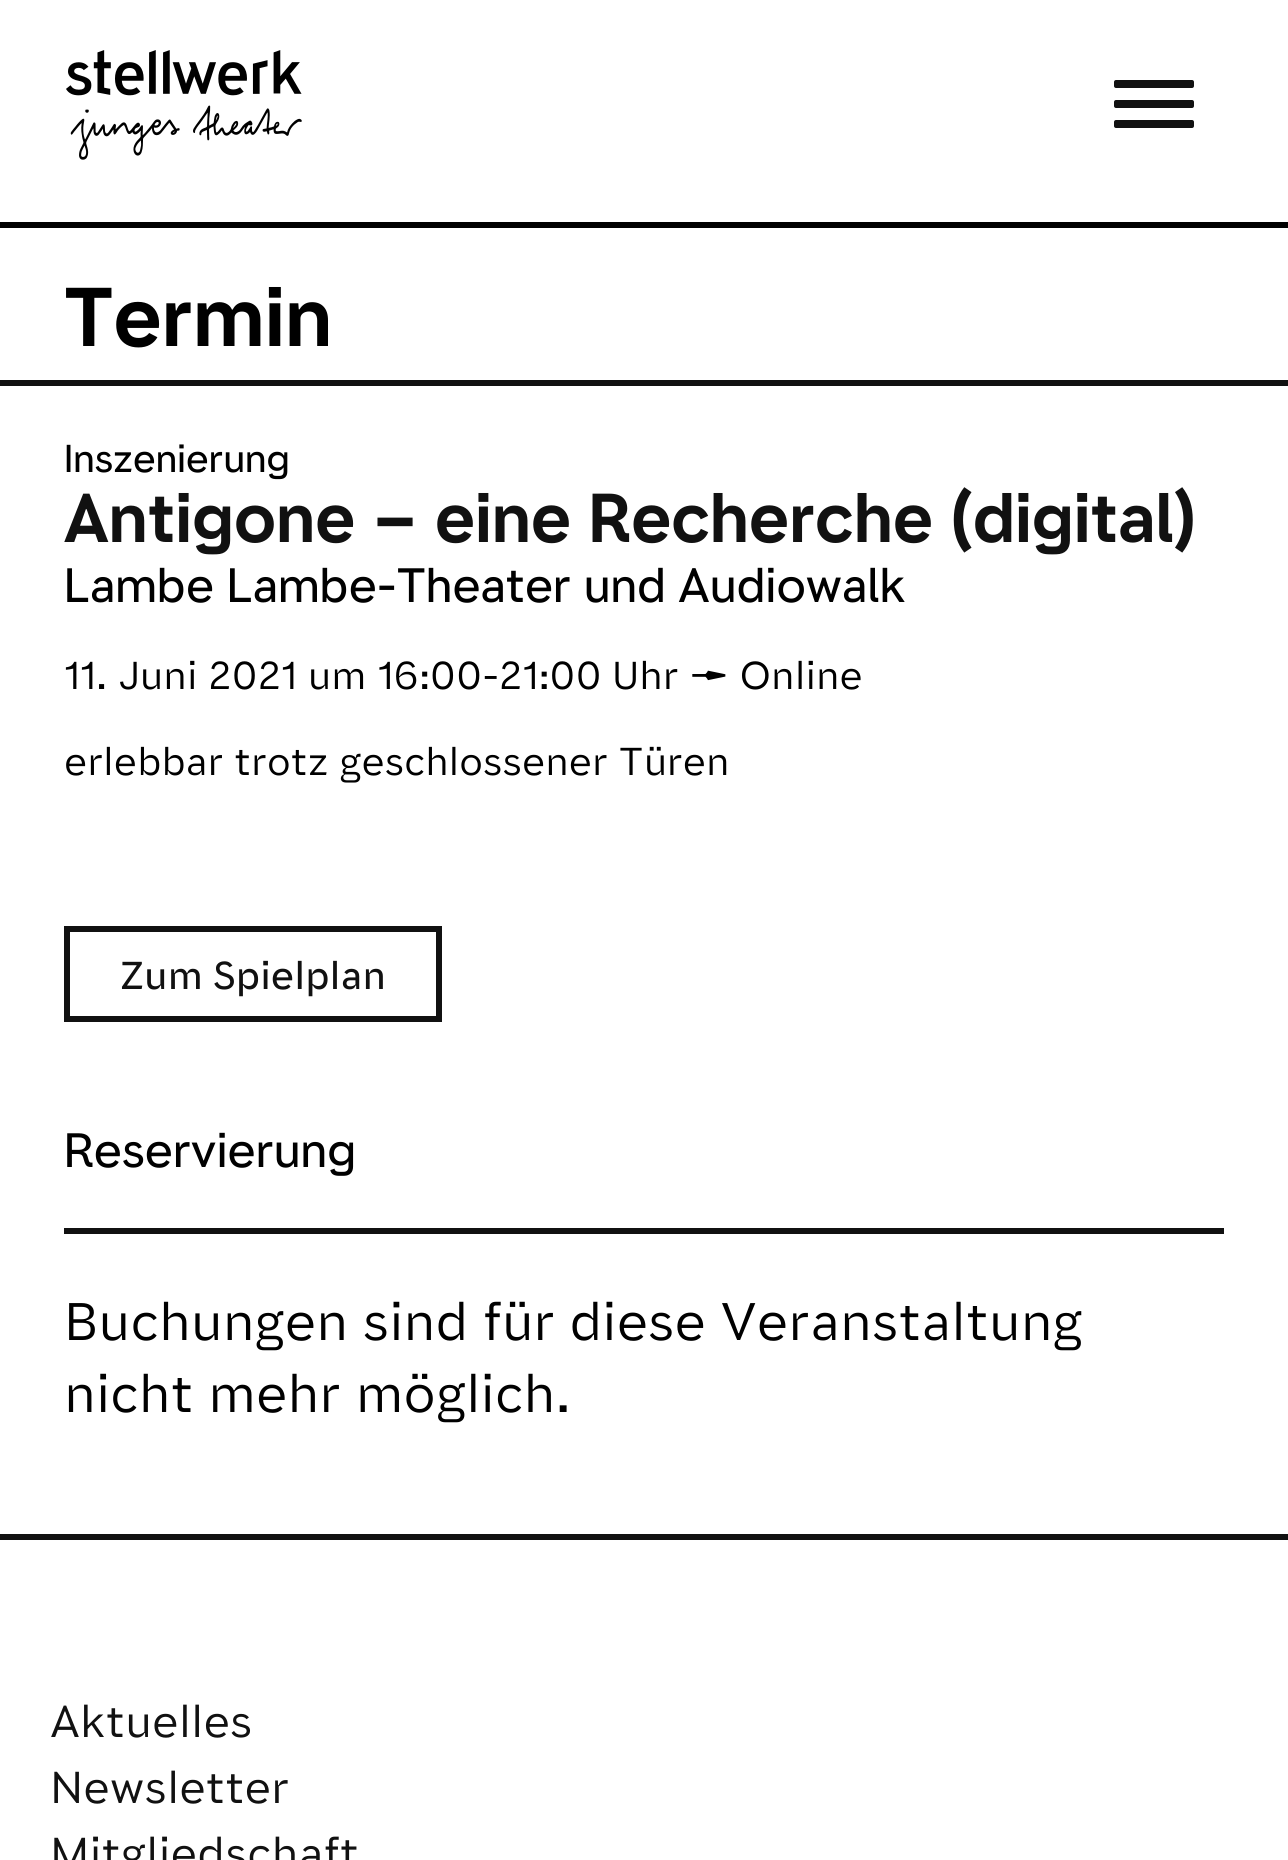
#include <cairo.h>
#include <math.h>
#include <stddef.h>

typedef struct { double x, y; const char *s; } line_t;

static void ink(cairo_t *ctx, unsigned color) {
    cairo_set_source_rgb(ctx, (color >> 16) / 255.0, (color >> 8 & 255) / 255.0, (color & 255) / 255.0);
}

static void round_path(cairo_t *ctx, double x, double y, double w, double h, double r) {
    cairo_new_sub_path(ctx);
    cairo_arc(ctx, x + w - r, y + h - r, r, 0, M_PI / 2);
    cairo_arc(ctx, x + r, y + h - r, r, M_PI / 2, M_PI);
    cairo_arc(ctx, x + r, y + r, r, M_PI, 1.5 * M_PI);
    cairo_arc(ctx, x + w - r, y + r, r, 1.5 * M_PI, 2 * M_PI);
    cairo_close_path(ctx);
}

static void paste(cairo_t *ctx, const char *path, double x, double y, double w, double h) {
    cairo_surface_t *image = cairo_image_surface_create_from_png(path);
    cairo_save(ctx);
    cairo_set_source_surface(ctx, image, x, y);
    cairo_rectangle(ctx, x, y, w, h);
    cairo_fill(ctx);
    cairo_restore(ctx);
    cairo_surface_destroy(image);
}

int main(void) {
    cairo_surface_t *surface = cairo_image_surface_create(CAIRO_FORMAT_RGB24, 1288, 1860);
    cairo_t *ctx = cairo_create(surface);
    cairo_font_options_t *options = cairo_font_options_create();
    cairo_font_options_set_hint_metrics(options, CAIRO_HINT_METRICS_OFF);
    cairo_font_options_set_hint_style(options, CAIRO_HINT_STYLE_NONE);
    cairo_set_font_options(ctx, options);
    cairo_set_miter_limit(ctx, 4);
    ink(ctx, 0xFFFFFF);
    cairo_paint(ctx);
    ink(ctx, 0x000000);
    cairo_rectangle(ctx, 0, 222, 1288, 6);
    cairo_fill(ctx);
    paste(ctx, "media/1.png", 66, 50, 236, 110);
    ink(ctx, 0x111111);
    round_path(ctx, 1114, 100, 80, 8, 2);
    cairo_fill(ctx);
    round_path(ctx, 1114, 80, 80, 8, 2);
    cairo_fill(ctx);
    round_path(ctx, 1114, 120, 80, 8, 2);
    cairo_fill(ctx);
    cairo_rectangle(ctx, 0, 380, 1288, 6);
    cairo_fill(ctx);
    cairo_select_font_face(ctx, "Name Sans", CAIRO_FONT_SLANT_NORMAL, CAIRO_FONT_WEIGHT_BOLD);
    cairo_set_font_size(ctx, 82);
    ink(ctx, 0x000000);
    cairo_move_to(ctx, 64, 346);
    cairo_show_text(ctx, "Termin");
    cairo_select_font_face(ctx, "Name Sans Medium", CAIRO_FONT_SLANT_NORMAL, CAIRO_FONT_WEIGHT_NORMAL);
    cairo_set_font_size(ctx, 38.3);
    cairo_move_to(ctx, 64, 472);
    cairo_show_text(ctx, "Inszenierung");
    cairo_select_font_face(ctx, "Name Sans", CAIRO_FONT_SLANT_NORMAL, CAIRO_FONT_WEIGHT_BOLD);
    cairo_set_font_size(ctx, 68.1);
    ink(ctx, 0x111111);
    cairo_move_to(ctx, 64, 542);
    cairo_show_text(ctx, "Antigone – eine Recherche (digital)");
    cairo_select_font_face(ctx, "Name Sans Medium", CAIRO_FONT_SLANT_NORMAL, CAIRO_FONT_WEIGHT_NORMAL);
    cairo_set_font_size(ctx, 47.5);
    ink(ctx, 0x000000);
    cairo_move_to(ctx, 64, 602);
    cairo_show_text(ctx, "Lambe Lambe-Theater und Audiowalk");
    cairo_select_font_face(ctx, "Name Sans", CAIRO_FONT_SLANT_NORMAL, CAIRO_FONT_WEIGHT_NORMAL);
    cairo_set_font_size(ctx, 38.3);
    cairo_move_to(ctx, 64, 689);
    cairo_show_text(ctx, "11. Juni 2021 um 16:00-21:00 Uhr ➝ Online");
    cairo_move_to(ctx, 64, 775);
    cairo_show_text(ctx, "erlebbar trotz geschlossener Türen");
    cairo_rectangle(ctx, 67, 929, 372, 90);
    ink(ctx, 0x111111);
    cairo_set_line_width(ctx, 6);
    cairo_stroke(ctx);
    cairo_select_font_face(ctx, "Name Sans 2 Medium", CAIRO_FONT_SLANT_NORMAL, CAIRO_FONT_WEIGHT_NORMAL);
    cairo_move_to(ctx, 120, 989);
    cairo_show_text(ctx, "Zum Spielplan");
    cairo_rectangle(ctx, 64, 1228, 1160, 6);
    cairo_fill(ctx);
    cairo_select_font_face(ctx, "Name Sans Medium", CAIRO_FONT_SLANT_NORMAL, CAIRO_FONT_WEIGHT_NORMAL);
    cairo_set_font_size(ctx, 47.5);
    ink(ctx, 0x000000);
    cairo_move_to(ctx, 64, 1167);
    cairo_show_text(ctx, "Reservierung");
    cairo_select_font_face(ctx, "Name Sans", CAIRO_FONT_SLANT_NORMAL, CAIRO_FONT_WEIGHT_NORMAL);
    cairo_set_font_size(ctx, 52);
    cairo_move_to(ctx, 64, 1340);
    cairo_show_text(ctx, "Buchungen sind für diese Veranstaltung");
    cairo_move_to(ctx, 64, 1412);
    cairo_show_text(ctx, "nicht mehr möglich.");
    ink(ctx, 0x111111);
    cairo_rectangle(ctx, 0, 1534, 1288, 6);
    cairo_fill(ctx);
    cairo_set_font_size(ctx, 44);
    {
        static const line_t items[] = {
            {50, 1737, "Aktuelles"},
            {50, 1803, "Newsletter"},
            {50, 1869, "Mitgliedschaft"},
        };
        for (size_t i = 0; i < sizeof items / sizeof *items; i++) {
            cairo_move_to(ctx, items[i].x, items[i].y);
            cairo_show_text(ctx, items[i].s);
        }
    }
    cairo_surface_write_to_png(surface, "image.png");
    cairo_font_options_destroy(options);
    cairo_destroy(ctx);
    cairo_surface_destroy(surface);
    return 0;
}
